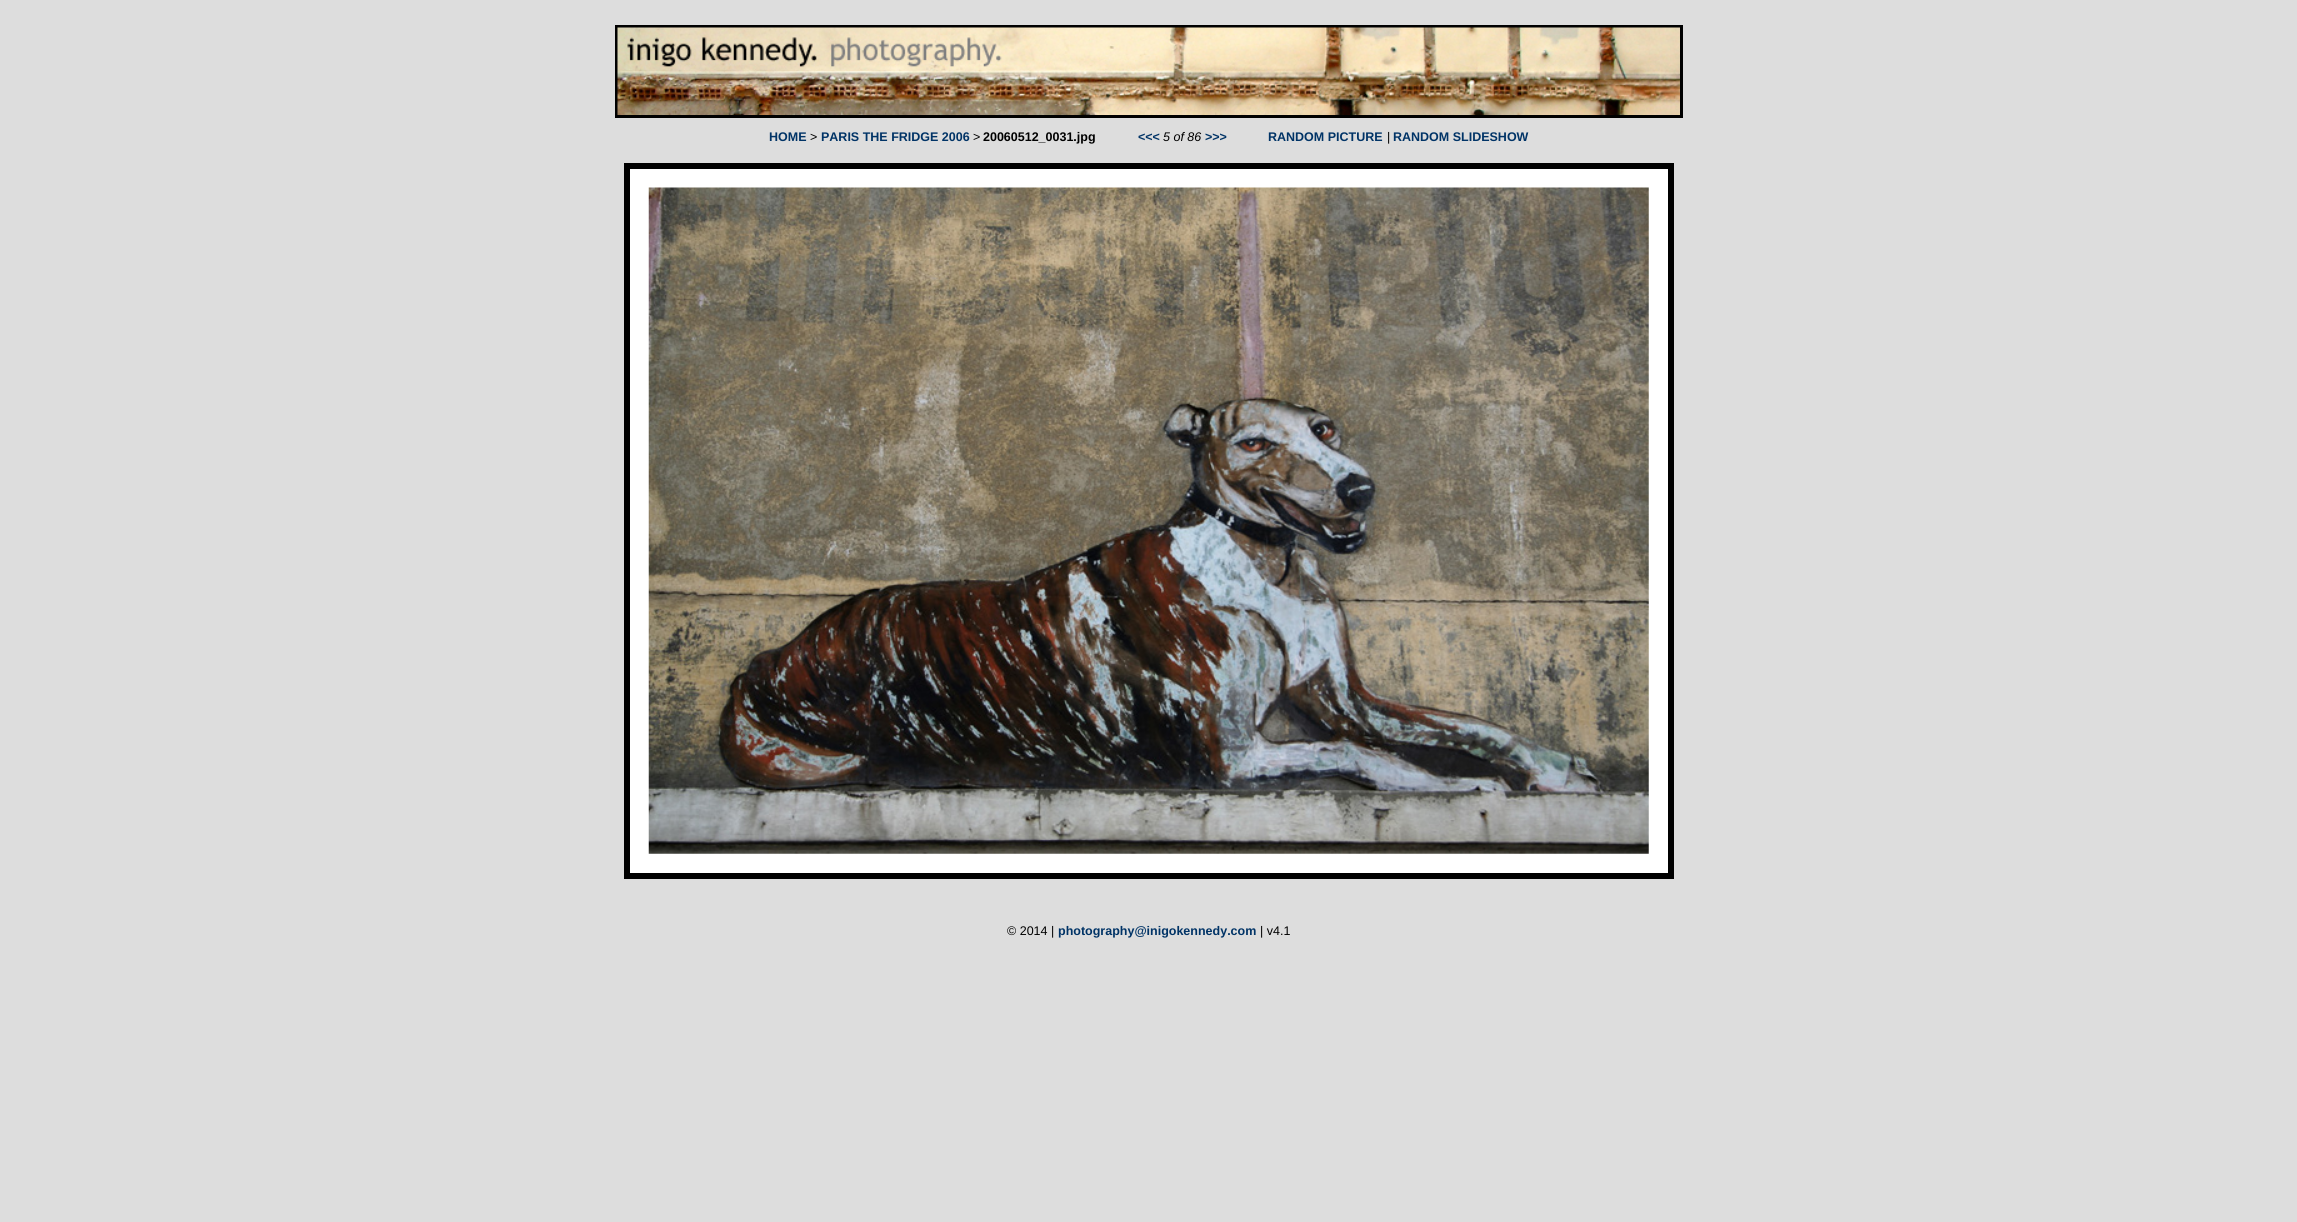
#include <cairo.h>
#include <math.h>
#include <stddef.h>


static void ink(cairo_t *ctx, unsigned color) {
    cairo_set_source_rgb(ctx, (color >> 16) / 255.0, (color >> 8 & 255) / 255.0, (color & 255) / 255.0);
}

static void paste(cairo_t *ctx, const char *path, double x, double y, double w, double h) {
    cairo_surface_t *image = cairo_image_surface_create_from_png(path);
    cairo_save(ctx);
    cairo_set_source_surface(ctx, image, x, y);
    cairo_rectangle(ctx, x, y, w, h);
    cairo_fill(ctx);
    cairo_restore(ctx);
    cairo_surface_destroy(image);
}

int main(void) {
    cairo_surface_t *surface = cairo_image_surface_create(CAIRO_FORMAT_RGB24, 2297, 1222);
    cairo_t *ctx = cairo_create(surface);
    cairo_font_options_t *options = cairo_font_options_create();
    cairo_font_options_set_hint_metrics(options, CAIRO_HINT_METRICS_OFF);
    cairo_font_options_set_hint_style(options, CAIRO_HINT_STYLE_NONE);
    cairo_set_font_options(ctx, options);
    cairo_set_miter_limit(ctx, 4);
    ink(ctx, 0xDDDDDD);
    cairo_paint(ctx);
    cairo_rectangle(ctx, 616.5, 26.5, 1065, 90);
    ink(ctx, 0x000000);
    cairo_set_line_width(ctx, 3);
    cairo_stroke(ctx);
    paste(ctx, "media/1.png", 617, 27, 1063, 88);
    cairo_select_font_face(ctx, "Liberation Sans", CAIRO_FONT_SLANT_NORMAL, CAIRO_FONT_WEIGHT_BOLD);
    cairo_set_font_size(ctx, 12.5);
    ink(ctx, 0x003366);
    cairo_move_to(ctx, 769, 141);
    cairo_show_text(ctx, "HOME");
    cairo_select_font_face(ctx, "Liberation Sans", CAIRO_FONT_SLANT_NORMAL, CAIRO_FONT_WEIGHT_NORMAL);
    ink(ctx, 0x000000);
    cairo_move_to(ctx, 810, 141);
    cairo_show_text(ctx, ">");
    cairo_select_font_face(ctx, "Liberation Sans", CAIRO_FONT_SLANT_NORMAL, CAIRO_FONT_WEIGHT_BOLD);
    ink(ctx, 0x003366);
    cairo_move_to(ctx, 821, 141);
    cairo_show_text(ctx, "PARIS THE FRIDGE 2006");
    cairo_select_font_face(ctx, "Liberation Sans", CAIRO_FONT_SLANT_NORMAL, CAIRO_FONT_WEIGHT_NORMAL);
    ink(ctx, 0x000000);
    cairo_move_to(ctx, 973, 141);
    cairo_show_text(ctx, ">");
    cairo_select_font_face(ctx, "Liberation Sans", CAIRO_FONT_SLANT_NORMAL, CAIRO_FONT_WEIGHT_BOLD);
    cairo_move_to(ctx, 983, 141);
    cairo_show_text(ctx, "20060512_0031.jpg");
    ink(ctx, 0x003366);
    cairo_move_to(ctx, 1138, 141);
    cairo_show_text(ctx, "<<<");
    cairo_select_font_face(ctx, "Liberation Sans", CAIRO_FONT_SLANT_ITALIC, CAIRO_FONT_WEIGHT_NORMAL);
    ink(ctx, 0x000000);
    cairo_move_to(ctx, 1163, 141);
    cairo_show_text(ctx, "5 of 86");
    cairo_select_font_face(ctx, "Liberation Sans", CAIRO_FONT_SLANT_NORMAL, CAIRO_FONT_WEIGHT_BOLD);
    ink(ctx, 0x003366);
    cairo_move_to(ctx, 1205, 141);
    cairo_show_text(ctx, ">>>");
    cairo_move_to(ctx, 1268, 141);
    cairo_show_text(ctx, "RANDOM PICTURE");
    cairo_select_font_face(ctx, "Liberation Sans", CAIRO_FONT_SLANT_NORMAL, CAIRO_FONT_WEIGHT_NORMAL);
    ink(ctx, 0x000000);
    cairo_move_to(ctx, 1387, 141);
    cairo_show_text(ctx, "|");
    cairo_select_font_face(ctx, "Liberation Sans", CAIRO_FONT_SLANT_NORMAL, CAIRO_FONT_WEIGHT_BOLD);
    ink(ctx, 0x003366);
    cairo_move_to(ctx, 1393, 141);
    cairo_show_text(ctx, "RANDOM SLIDESHOW");
    ink(ctx, 0xFFFFFF);
    cairo_rectangle(ctx, 627, 166, 1044, 710);
    cairo_fill_preserve(ctx);
    ink(ctx, 0x000000);
    cairo_set_line_width(ctx, 6);
    cairo_stroke(ctx);
    paste(ctx, "media/2.png", 648, 187, 1001, 667);
    cairo_select_font_face(ctx, "Liberation Sans", CAIRO_FONT_SLANT_NORMAL, CAIRO_FONT_WEIGHT_NORMAL);
    cairo_move_to(ctx, 1007, 935);
    cairo_show_text(ctx, "© 2014 |");
    cairo_select_font_face(ctx, "Liberation Sans", CAIRO_FONT_SLANT_NORMAL, CAIRO_FONT_WEIGHT_BOLD);
    ink(ctx, 0x003366);
    cairo_move_to(ctx, 1058, 935);
    cairo_show_text(ctx, "photography@inigokennedy.com");
    cairo_select_font_face(ctx, "Liberation Sans", CAIRO_FONT_SLANT_NORMAL, CAIRO_FONT_WEIGHT_NORMAL);
    ink(ctx, 0x000000);
    cairo_move_to(ctx, 1260, 935);
    cairo_show_text(ctx, "| v4.1");
    cairo_surface_write_to_png(surface, "image.png");
    cairo_font_options_destroy(options);
    cairo_destroy(ctx);
    cairo_surface_destroy(surface);
    return 0;
}
